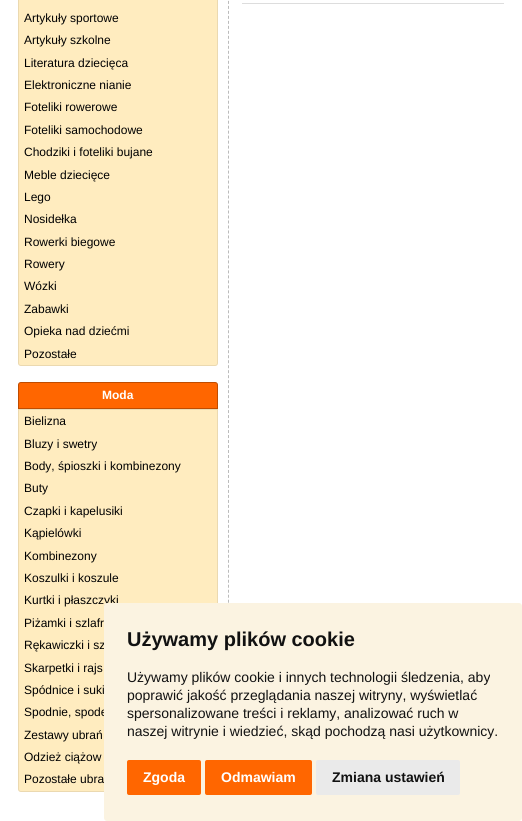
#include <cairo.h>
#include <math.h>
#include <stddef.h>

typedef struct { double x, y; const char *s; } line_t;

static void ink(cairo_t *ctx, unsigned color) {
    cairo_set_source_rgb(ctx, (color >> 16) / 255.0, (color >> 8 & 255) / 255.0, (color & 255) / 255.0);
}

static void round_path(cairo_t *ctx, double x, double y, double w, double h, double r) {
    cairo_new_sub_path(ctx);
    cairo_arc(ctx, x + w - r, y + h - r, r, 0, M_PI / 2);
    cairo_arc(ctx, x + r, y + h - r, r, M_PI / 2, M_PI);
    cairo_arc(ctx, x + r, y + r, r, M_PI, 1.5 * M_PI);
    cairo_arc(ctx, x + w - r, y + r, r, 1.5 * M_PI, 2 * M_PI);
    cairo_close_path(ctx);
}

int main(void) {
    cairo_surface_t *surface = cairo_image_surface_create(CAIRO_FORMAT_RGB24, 522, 821);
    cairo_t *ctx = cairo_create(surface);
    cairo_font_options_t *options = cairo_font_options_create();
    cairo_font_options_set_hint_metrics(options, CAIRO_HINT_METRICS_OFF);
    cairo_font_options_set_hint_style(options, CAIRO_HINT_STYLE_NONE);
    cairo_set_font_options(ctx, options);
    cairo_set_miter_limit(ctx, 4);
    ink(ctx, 0xFFFFFF);
    cairo_paint(ctx);
    ink(ctx, 0xDDDDDD);
    cairo_rectangle(ctx, 242, 3, 262, 1);
    cairo_fill(ctx);
    cairo_new_path(ctx);
    cairo_move_to(ctx, 228.5, -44);
    cairo_line_to(ctx, 228.5, 792);
    ink(ctx, 0xBBBBBB);
    cairo_set_line_width(ctx, 1);
    cairo_set_dash(ctx, (double[]){3, 1.99}, 2, 0);
    cairo_stroke(ctx);
    ink(ctx, 0xFFECBF);
    cairo_new_path(ctx);
    cairo_move_to(ctx, 18.5, -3.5);
    cairo_line_to(ctx, 217.5, -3.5);
    cairo_line_to(ctx, 217.5, 363);
    cairo_curve_to(ctx, 217.5, 364.5, 216.5, 365.5, 215, 365.5);
    cairo_line_to(ctx, 21, 365.5);
    cairo_curve_to(ctx, 19.5, 365.5, 18.5, 364.5, 18.5, 363);
    cairo_close_path(ctx);
    cairo_fill_preserve(ctx);
    ink(ctx, 0xEBD9B0);
    cairo_set_dash(ctx, NULL, 0, 0);
    cairo_stroke(ctx);
    cairo_select_font_face(ctx, "Liberation Sans", CAIRO_FONT_SLANT_NORMAL, CAIRO_FONT_WEIGHT_NORMAL);
    cairo_set_font_size(ctx, 12);
    ink(ctx, 0x000000);
    {
        static const line_t items[] = {
            {24, 22, "Artykuły sportowe"},
            {24, 44, "Artykuły szkolne"},
            {24, 67, "Literatura dziecięca"},
            {24, 89, "Elektroniczne nianie"},
            {24, 111, "Foteliki rowerowe"},
            {24, 134, "Foteliki samochodowe"},
            {24, 156, "Chodziki i foteliki bujane"},
            {24, 179, "Meble dziecięce"},
            {24, 201, "Lego"},
            {24, 223, "Nosidełka"},
            {24, 246, "Rowerki biegowe"},
            {24, 268, "Rowery"},
            {24, 290, "Wózki"},
            {24, 313, "Zabawki"},
            {24, 335, "Opieka nad dziećmi"},
            {24, 358, "Pozostałe"},
        };
        for (size_t i = 0; i < sizeof items / sizeof *items; i++) {
            cairo_move_to(ctx, items[i].x, items[i].y);
            cairo_show_text(ctx, items[i].s);
        }
    }
    ink(ctx, 0xFF6600);
    cairo_new_path(ctx);
    cairo_move_to(ctx, 21, 382.5);
    cairo_line_to(ctx, 215, 382.5);
    cairo_curve_to(ctx, 216.5, 382.5, 217.5, 383.5, 217.5, 385);
    cairo_line_to(ctx, 217.5, 408.5);
    cairo_line_to(ctx, 18.5, 408.5);
    cairo_line_to(ctx, 18.5, 385);
    cairo_curve_to(ctx, 18.5, 383.5, 19.5, 382.5, 21, 382.5);
    cairo_close_path(ctx);
    cairo_fill_preserve(ctx);
    ink(ctx, 0xBF4C00);
    cairo_stroke(ctx);
    cairo_select_font_face(ctx, "Liberation Sans", CAIRO_FONT_SLANT_NORMAL, CAIRO_FONT_WEIGHT_BOLD);
    ink(ctx, 0xFFFFFF);
    cairo_move_to(ctx, 102, 399);
    cairo_show_text(ctx, "Moda");
    ink(ctx, 0xFFECBF);
    cairo_new_path(ctx);
    cairo_move_to(ctx, 18.5, 409.5);
    cairo_line_to(ctx, 217.5, 409.5);
    cairo_line_to(ctx, 217.5, 789);
    cairo_curve_to(ctx, 217.5, 790.5, 216.5, 791.5, 215, 791.5);
    cairo_line_to(ctx, 21, 791.5);
    cairo_curve_to(ctx, 19.5, 791.5, 18.5, 790.5, 18.5, 789);
    cairo_close_path(ctx);
    cairo_fill_preserve(ctx);
    ink(ctx, 0xEBD9B0);
    cairo_stroke(ctx);
    cairo_select_font_face(ctx, "Liberation Sans", CAIRO_FONT_SLANT_NORMAL, CAIRO_FONT_WEIGHT_NORMAL);
    ink(ctx, 0x000000);
    {
        static const line_t items[] = {
            {24, 425, "Bielizna"},
            {24, 448, "Bluzy i swetry"},
            {24, 470, "Body, śpioszki i kombinezony"},
            {24, 492, "Buty"},
            {24, 515, "Czapki i kapelusiki"},
            {24, 537, "Kąpielówki"},
            {24, 560, "Kombinezony"},
            {24, 582, "Koszulki i koszule"},
            {24, 604, "Kurtki i płaszczyki"},
            {24, 627, "Piżamki i szlafr"},
            {24, 649, "Rękawiczki i sz"},
            {24, 672, "Skarpetki i rajs"},
            {24, 694, "Spódnice i suki"},
            {24, 716, "Spodnie, spode"},
            {24, 739, "Zestawy ubrań"},
            {24, 761, "Odzież ciążow"},
            {24, 783, "Pozostałe ubra"},
        };
        for (size_t i = 0; i < sizeof items / sizeof *items; i++) {
            cairo_move_to(ctx, items[i].x, items[i].y);
            cairo_show_text(ctx, items[i].s);
        }
    }
    ink(ctx, 0xFBF3E1);
    round_path(ctx, 104, 603, 418, 218, 3);
    cairo_fill(ctx);
    cairo_select_font_face(ctx, "Liberation Sans", CAIRO_FONT_SLANT_NORMAL, CAIRO_FONT_WEIGHT_BOLD);
    cairo_set_font_size(ctx, 20);
    ink(ctx, 0x111111);
    cairo_move_to(ctx, 127, 646);
    cairo_show_text(ctx, "Używamy plików cookie");
    cairo_select_font_face(ctx, "Liberation Sans", CAIRO_FONT_SLANT_NORMAL, CAIRO_FONT_WEIGHT_NORMAL);
    cairo_set_font_size(ctx, 14);
    {
        static const line_t items[] = {
            {127, 682, "Używamy plików cookie i innych technologii śledzenia, aby"},
            {127, 700, "poprawić jakość przeglądania naszej witryny, wyświetlać"},
            {127, 718, "spersonalizowane treści i reklamy, analizować ruch w"},
            {127, 736, "naszej witrynie i wiedzieć, skąd pochodzą nasi użytkownicy."},
        };
        for (size_t i = 0; i < sizeof items / sizeof *items; i++) {
            cairo_move_to(ctx, items[i].x, items[i].y);
            cairo_show_text(ctx, items[i].s);
        }
    }
    ink(ctx, 0xFF6600);
    round_path(ctx, 127, 760, 74, 35, 2);
    cairo_fill(ctx);
    cairo_select_font_face(ctx, "Liberation Sans", CAIRO_FONT_SLANT_NORMAL, CAIRO_FONT_WEIGHT_BOLD);
    ink(ctx, 0xFFFFFF);
    cairo_move_to(ctx, 143, 782);
    cairo_show_text(ctx, "Zgoda");
    ink(ctx, 0xFF6600);
    round_path(ctx, 205, 760, 107, 35, 2);
    cairo_fill(ctx);
    ink(ctx, 0xFFFFFF);
    cairo_move_to(ctx, 221, 782);
    cairo_show_text(ctx, "Odmawiam");
    ink(ctx, 0xEAEAEA);
    round_path(ctx, 316, 760, 144, 35, 2);
    cairo_fill(ctx);
    ink(ctx, 0x111111);
    cairo_move_to(ctx, 332, 782);
    cairo_show_text(ctx, "Zmiana ustawień");
    cairo_surface_write_to_png(surface, "image.png");
    cairo_font_options_destroy(options);
    cairo_destroy(ctx);
    cairo_surface_destroy(surface);
    return 0;
}
